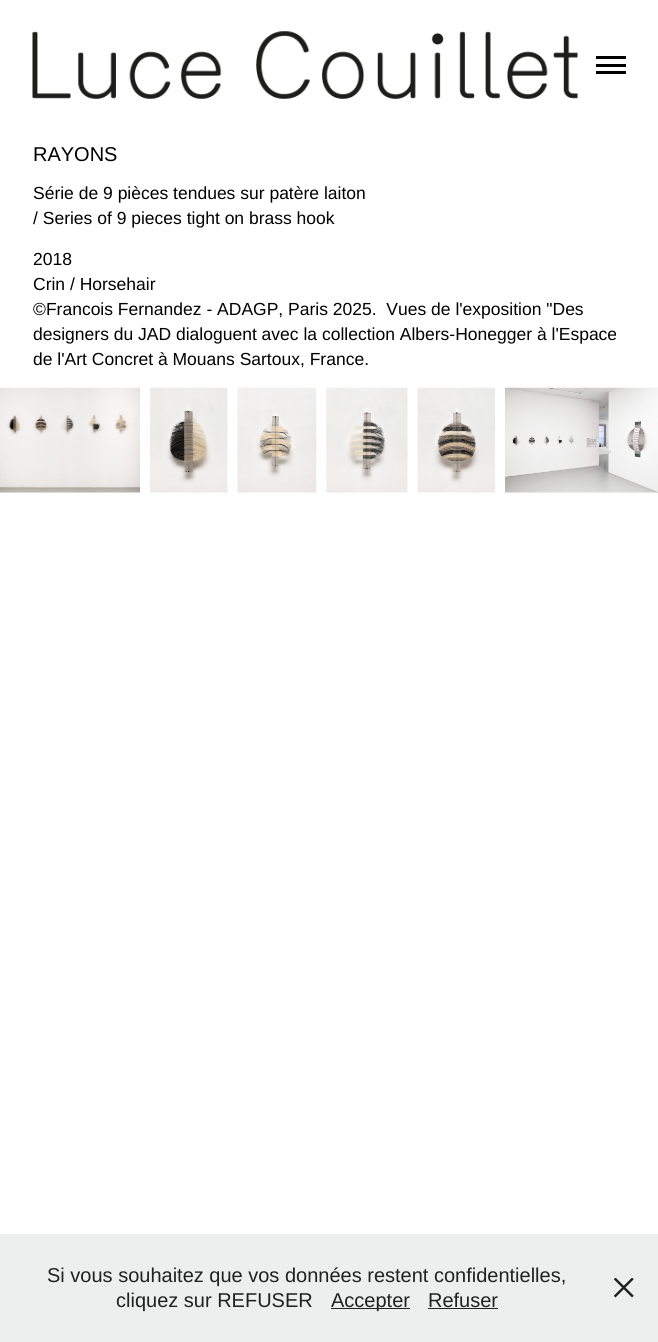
#include <cairo.h>
#include <math.h>
#include <stddef.h>

typedef struct { double x, y; const char *s; } line_t;
typedef struct { double x, y, w, h; unsigned color; } box_t;

static void ink(cairo_t *ctx, unsigned color) {
    cairo_set_source_rgb(ctx, (color >> 16) / 255.0, (color >> 8 & 255) / 255.0, (color & 255) / 255.0);
}

static void paste(cairo_t *ctx, const char *path, double x, double y, double w, double h) {
    cairo_surface_t *image = cairo_image_surface_create_from_png(path);
    cairo_save(ctx);
    cairo_set_source_surface(ctx, image, x, y);
    cairo_rectangle(ctx, x, y, w, h);
    cairo_fill(ctx);
    cairo_restore(ctx);
    cairo_surface_destroy(image);
}

int main(void) {
    cairo_surface_t *surface = cairo_image_surface_create(CAIRO_FORMAT_RGB24, 658, 1342);
    cairo_t *ctx = cairo_create(surface);
    cairo_font_options_t *options = cairo_font_options_create();
    cairo_font_options_set_hint_metrics(options, CAIRO_HINT_METRICS_OFF);
    cairo_font_options_set_hint_style(options, CAIRO_HINT_STYLE_NONE);
    cairo_set_font_options(ctx, options);
    cairo_set_miter_limit(ctx, 4);
    ink(ctx, 0xFFFFFF);
    cairo_paint(ctx);
    paste(ctx, "media/1.png", 32, 31, 546, 68);
    {
        static const box_t items[] = {
            {596, 56, 30, 3, 0x000000},
            {596, 64, 30, 3, 0x000000},
            {596, 71, 30, 3, 0x000000},
        };
        for (size_t i = 0; i < sizeof items / sizeof *items; i++) {
            ink(ctx, items[i].color);
            cairo_rectangle(ctx, items[i].x, items[i].y, items[i].w, items[i].h);
            cairo_fill(ctx);
        }
    }
    cairo_select_font_face(ctx, "Liberation Sans", CAIRO_FONT_SLANT_NORMAL, CAIRO_FONT_WEIGHT_NORMAL);
    cairo_set_font_size(ctx, 20);
    cairo_move_to(ctx, 33, 161);
    cairo_show_text(ctx, "RAYONS");
    cairo_set_font_size(ctx, 17.5);
    {
        static const line_t items[] = {
            {33, 199, "Série de 9 pièces tendues sur patère laiton"},
            {33, 224, "/ Series of 9 pieces tight on brass hook"},
            {33, 265, "2018"},
            {33, 290, "Crin / Horsehair"},
            {33, 315, "©Francois Fernandez - ADAGP, Paris 2025.  Vues de l'exposition \"Des"},
            {33, 340, "designers du JAD dialoguent avec la collection Albers-Honegger à l'Espace"},
            {33, 365, "de l'Art Concret à Mouans Sartoux, France."},
        };
        for (size_t i = 0; i < sizeof items / sizeof *items; i++) {
            cairo_move_to(ctx, items[i].x, items[i].y);
            cairo_show_text(ctx, items[i].s);
        }
    }
    paste(ctx, "media/2.png", 0, 387, 140, 106);
    paste(ctx, "media/3.png", 150, 387, 78, 106);
    paste(ctx, "media/4.png", 237, 387, 80, 106);
    paste(ctx, "media/5.png", 326, 387, 82, 106);
    paste(ctx, "media/6.png", 417, 387, 78, 106);
    paste(ctx, "media/7.png", 505, 387, 153, 106);
    ink(ctx, 0xEDEEEE);
    cairo_rectangle(ctx, 0, 1234, 658, 108);
    cairo_fill(ctx);
    cairo_set_font_size(ctx, 20);
    ink(ctx, 0x212121);
    cairo_move_to(ctx, 47, 1282);
    cairo_show_text(ctx, "Si vous souhaitez que vos données restent confidentielles,");
    cairo_move_to(ctx, 116, 1307);
    cairo_show_text(ctx, "cliquez sur REFUSER");
    cairo_rectangle(ctx, 331, 1308, 79, 1);
    cairo_fill(ctx);
    cairo_move_to(ctx, 331, 1307);
    cairo_show_text(ctx, "Accepter");
    cairo_move_to(ctx, 428, 1307);
    cairo_show_text(ctx, "Refuser");
    cairo_rectangle(ctx, 428, 1308, 70, 1);
    cairo_fill(ctx);
    paste(ctx, "media/8.png", 614, 1278, 20, 20);
    cairo_surface_write_to_png(surface, "image.png");
    cairo_font_options_destroy(options);
    cairo_destroy(ctx);
    cairo_surface_destroy(surface);
    return 0;
}
